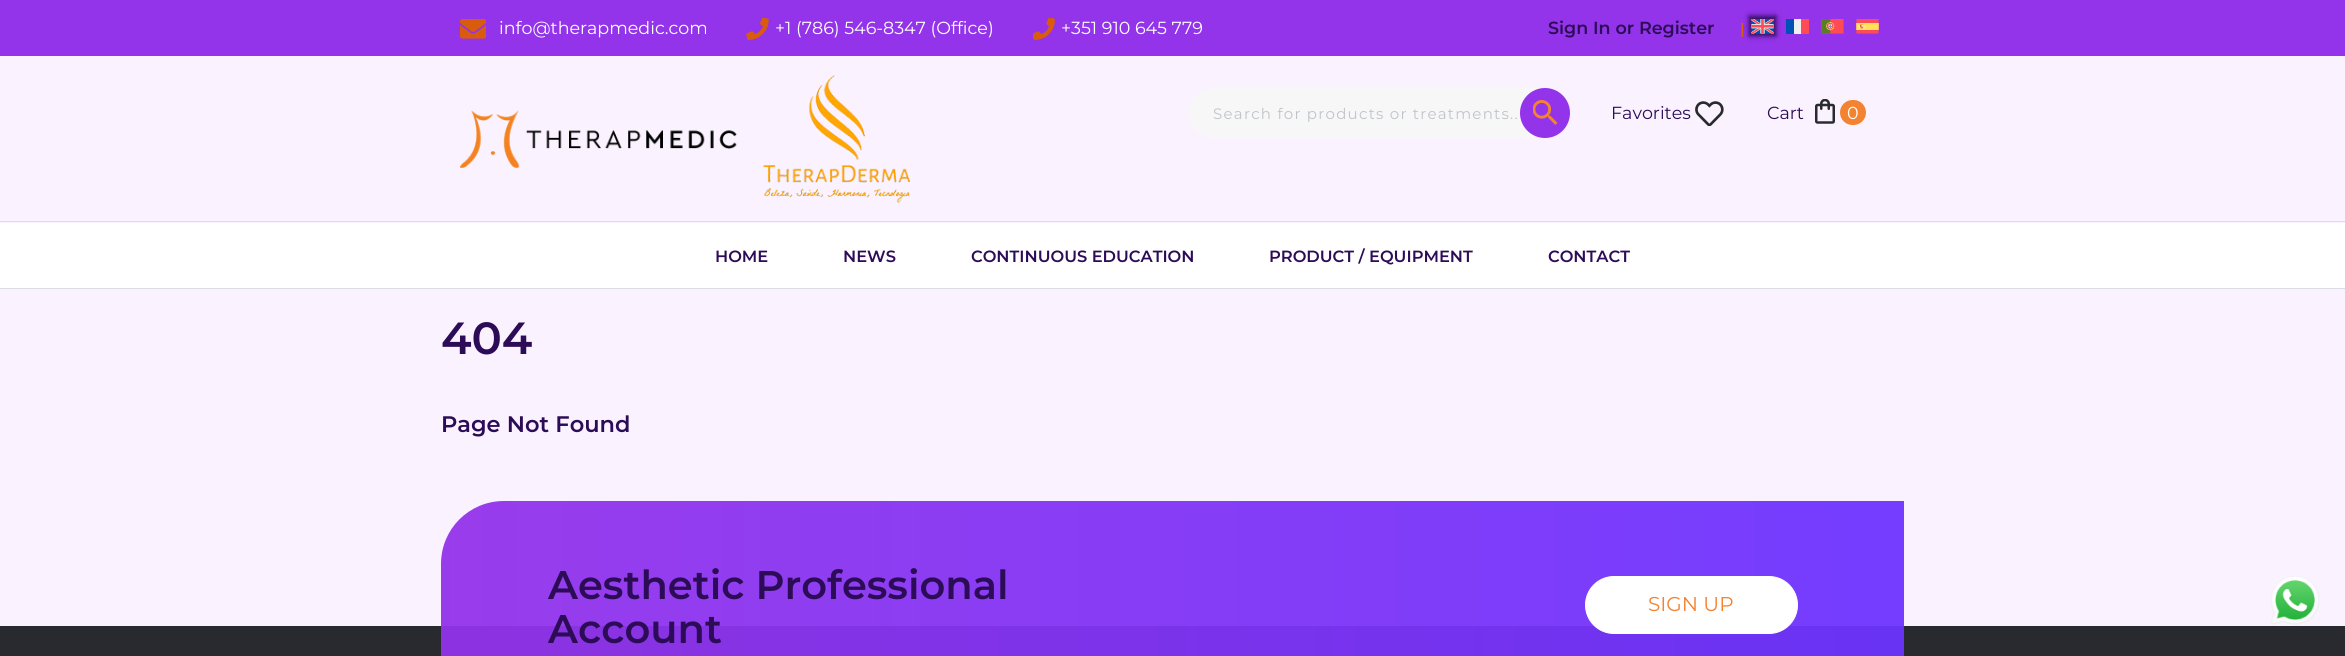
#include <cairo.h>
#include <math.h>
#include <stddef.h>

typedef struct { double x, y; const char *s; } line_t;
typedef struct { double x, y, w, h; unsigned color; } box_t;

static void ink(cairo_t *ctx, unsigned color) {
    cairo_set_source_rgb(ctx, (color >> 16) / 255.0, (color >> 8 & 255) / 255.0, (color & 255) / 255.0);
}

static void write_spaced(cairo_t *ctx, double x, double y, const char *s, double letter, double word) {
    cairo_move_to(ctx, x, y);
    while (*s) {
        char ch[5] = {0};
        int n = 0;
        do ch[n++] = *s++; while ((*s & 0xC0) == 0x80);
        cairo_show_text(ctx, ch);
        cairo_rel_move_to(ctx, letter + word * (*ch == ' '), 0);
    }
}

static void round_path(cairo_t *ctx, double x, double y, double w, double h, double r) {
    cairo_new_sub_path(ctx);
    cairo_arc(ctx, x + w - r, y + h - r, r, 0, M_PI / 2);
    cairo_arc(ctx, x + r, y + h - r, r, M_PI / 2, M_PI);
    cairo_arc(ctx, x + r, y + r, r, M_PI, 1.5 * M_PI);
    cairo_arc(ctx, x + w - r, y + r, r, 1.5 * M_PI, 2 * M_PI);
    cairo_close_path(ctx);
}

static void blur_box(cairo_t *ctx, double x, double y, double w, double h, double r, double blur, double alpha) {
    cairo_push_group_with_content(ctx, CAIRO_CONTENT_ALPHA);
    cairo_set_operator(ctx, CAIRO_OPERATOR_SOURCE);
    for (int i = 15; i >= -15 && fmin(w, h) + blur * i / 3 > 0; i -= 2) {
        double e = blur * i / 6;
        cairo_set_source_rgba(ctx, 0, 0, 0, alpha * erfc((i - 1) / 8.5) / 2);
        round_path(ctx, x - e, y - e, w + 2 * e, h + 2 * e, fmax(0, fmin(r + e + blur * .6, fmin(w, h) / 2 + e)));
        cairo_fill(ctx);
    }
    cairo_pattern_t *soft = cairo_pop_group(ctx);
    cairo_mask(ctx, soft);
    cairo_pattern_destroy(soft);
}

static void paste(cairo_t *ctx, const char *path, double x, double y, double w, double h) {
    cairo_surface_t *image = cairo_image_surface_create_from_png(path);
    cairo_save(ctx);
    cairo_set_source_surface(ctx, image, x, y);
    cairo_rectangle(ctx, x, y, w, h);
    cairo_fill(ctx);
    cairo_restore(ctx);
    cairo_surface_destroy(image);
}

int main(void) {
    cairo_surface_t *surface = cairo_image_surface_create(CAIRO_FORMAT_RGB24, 2345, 656);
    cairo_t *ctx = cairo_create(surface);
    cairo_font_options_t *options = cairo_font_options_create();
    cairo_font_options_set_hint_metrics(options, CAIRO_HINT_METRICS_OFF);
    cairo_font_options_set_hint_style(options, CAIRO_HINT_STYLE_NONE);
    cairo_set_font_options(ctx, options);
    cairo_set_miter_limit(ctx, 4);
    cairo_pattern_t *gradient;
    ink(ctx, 0xFAF3FF);
    cairo_paint(ctx);
    ink(ctx, 0x9333EA);
    cairo_rectangle(ctx, 0, 0, 2345, 56);
    cairo_fill(ctx);
    paste(ctx, "media/1.png", 460, 19, 26, 20);
    cairo_select_font_face(ctx, "Montserrat", CAIRO_FONT_SLANT_NORMAL, CAIRO_FONT_WEIGHT_NORMAL);
    cairo_set_font_size(ctx, 17.5);
    ink(ctx, 0xFFFFFF);
    cairo_move_to(ctx, 499, 34);
    cairo_show_text(ctx, "info@therapmedic.com");
    paste(ctx, "media/2.png", 746, 18, 23, 22);
    cairo_move_to(ctx, 775, 34);
    cairo_show_text(ctx, "+1 (786) 546-8347 (Office)");
    paste(ctx, "media/3.png", 1033, 18, 22, 22);
    cairo_move_to(ctx, 1061, 34);
    cairo_show_text(ctx, "+351 910 645 779");
    cairo_select_font_face(ctx, "Montserrat SemiBold", CAIRO_FONT_SLANT_NORMAL, CAIRO_FONT_WEIGHT_NORMAL);
    ink(ctx, 0x2D0C57);
    cairo_move_to(ctx, 1548, 34);
    cairo_show_text(ctx, "Sign In or Register");
    cairo_set_font_size(ctx, 15);
    ink(ctx, 0xD95B0D);
    cairo_move_to(ctx, 1740, 34);
    cairo_show_text(ctx, "|");
    ink(ctx, 0x2D0C57);
    blur_box(ctx, 1749, 16, 27, 20, 0, 2.5, 1);
    paste(ctx, "media/4.png", 1751, 19, 23, 15);
    {
        static const box_t items[] = {
            {1794, 19, 7, 15, 0xF0F0F0},
            {1801, 19, 8, 15, 0xFF4B55},
            {1786, 19, 8, 15, 0x0052B4},
        };
        for (size_t i = 0; i < sizeof items / sizeof *items; i++) {
            ink(ctx, items[i].color);
            cairo_rectangle(ctx, items[i].x, items[i].y, items[i].w, items[i].h);
            cairo_fill(ctx);
        }
    }
    paste(ctx, "media/5.png", 1821, 19, 23, 15);
    paste(ctx, "media/6.png", 1856, 19, 23, 15);
    ink(ctx, 0xDDDDDD);
    cairo_rectangle(ctx, 0, 221, 2345, 1);
    cairo_fill(ctx);
    paste(ctx, "media/7.png", 460, 75, 450, 128);
    ink(ctx, 0xF7F7F8);
    round_path(ctx, 1189, 88, 381, 50, 25);
    cairo_fill(ctx);
    cairo_select_font_face(ctx, "Montserrat", CAIRO_FONT_SLANT_NORMAL, CAIRO_FONT_WEIGHT_NORMAL);
    ink(ctx, 0xC0C4C9);
    write_spaced(ctx, 1213, 119, "Search for products or treatments..", 1.25, 0);
    ink(ctx, 0x9333EA);
    cairo_new_path(ctx);
    cairo_arc(ctx, 1545, 113, 25, 0, 2 * M_PI);
    cairo_fill(ctx);
    paste(ctx, "media/8.png", 1533, 100, 25, 25);
    cairo_set_font_size(ctx, 17.5);
    ink(ctx, 0x2D0C57);
    cairo_move_to(ctx, 1611, 119);
    cairo_show_text(ctx, "Favorites");
    paste(ctx, "media/9.png", 1695, 101, 29, 25);
    cairo_move_to(ctx, 1767, 119);
    cairo_show_text(ctx, "Cart");
    paste(ctx, "media/10.png", 1815, 99, 20, 25);
    ink(ctx, 0xF38231);
    round_path(ctx, 1840, 100, 26, 25, 12.5);
    cairo_fill(ctx);
    ink(ctx, 0xFFFFFF);
    cairo_move_to(ctx, 1847, 119);
    cairo_show_text(ctx, "0");
    cairo_rectangle(ctx, 0, 223, 2345, 65);
    cairo_fill(ctx);
    cairo_select_font_face(ctx, "Montserrat SemiBold", CAIRO_FONT_SLANT_NORMAL, CAIRO_FONT_WEIGHT_NORMAL);
    cairo_set_font_size(ctx, 16.25);
    ink(ctx, 0x2D0C57);
    {
        static const line_t items[] = {
            {715, 262, "HOME"},
            {843, 262, "NEWS"},
            {971, 262, "CONTINUOUS EDUCATION"},
            {1269, 262, "PRODUCT / EQUIPMENT"},
            {1548, 262, "CONTACT"},
        };
        for (size_t i = 0; i < sizeof items / sizeof *items; i++) {
            cairo_move_to(ctx, items[i].x, items[i].y);
            cairo_show_text(ctx, items[i].s);
        }
    }
    ink(ctx, 0xDADEE2);
    cairo_rectangle(ctx, 0, 288, 2345, 1);
    cairo_fill(ctx);
    cairo_set_font_size(ctx, 45);
    ink(ctx, 0x2D0C57);
    cairo_move_to(ctx, 441, 354);
    cairo_show_text(ctx, "404");
    cairo_set_font_size(ctx, 22.5);
    cairo_move_to(ctx, 441, 432);
    cairo_show_text(ctx, "Page Not Found");
    ink(ctx, 0x282A2F);
    cairo_rectangle(ctx, 0, 626, 2345, 30);
    cairo_fill(ctx);
    gradient = cairo_pattern_create_linear(441, 626, 1904, 626);
    cairo_pattern_add_color_stop_rgba(gradient, 0, 0.576, 0.2, 0.918, 0.95);
    cairo_pattern_add_color_stop_rgba(gradient, 1, 0.424, 0.204, 1, 0.95);
    cairo_set_source(ctx, gradient);
    cairo_pattern_destroy(gradient);
    cairo_new_path(ctx);
    cairo_move_to(ctx, 504, 501);
    cairo_line_to(ctx, 1904, 501);
    cairo_line_to(ctx, 1904, 656);
    cairo_curve_to(ctx, 1904, 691, 1876, 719, 1841, 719);
    cairo_line_to(ctx, 441, 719);
    cairo_line_to(ctx, 441, 564);
    cairo_curve_to(ctx, 441, 529, 469, 501, 504, 501);
    cairo_close_path(ctx);
    cairo_fill(ctx);
    cairo_set_font_size(ctx, 40);
    ink(ctx, 0x2D0C57);
    cairo_move_to(ctx, 548, 599);
    cairo_show_text(ctx, "Aesthetic Professional");
    cairo_move_to(ctx, 548, 643);
    cairo_show_text(ctx, "Account");
    ink(ctx, 0xFFFFFF);
    round_path(ctx, 1585.5, 576.5, 212, 57, 28.5);
    cairo_fill_preserve(ctx);
    cairo_set_line_width(ctx, 1);
    cairo_stroke(ctx);
    cairo_select_font_face(ctx, "Montserrat", CAIRO_FONT_SLANT_NORMAL, CAIRO_FONT_WEIGHT_NORMAL);
    cairo_set_font_size(ctx, 20);
    ink(ctx, 0xF38231);
    cairo_move_to(ctx, 1648, 611);
    cairo_show_text(ctx, "SIGN UP");
    paste(ctx, "media/11.png", 2271, 576, 48, 49);
    cairo_surface_write_to_png(surface, "image.png");
    cairo_font_options_destroy(options);
    cairo_destroy(ctx);
    cairo_surface_destroy(surface);
    return 0;
}
